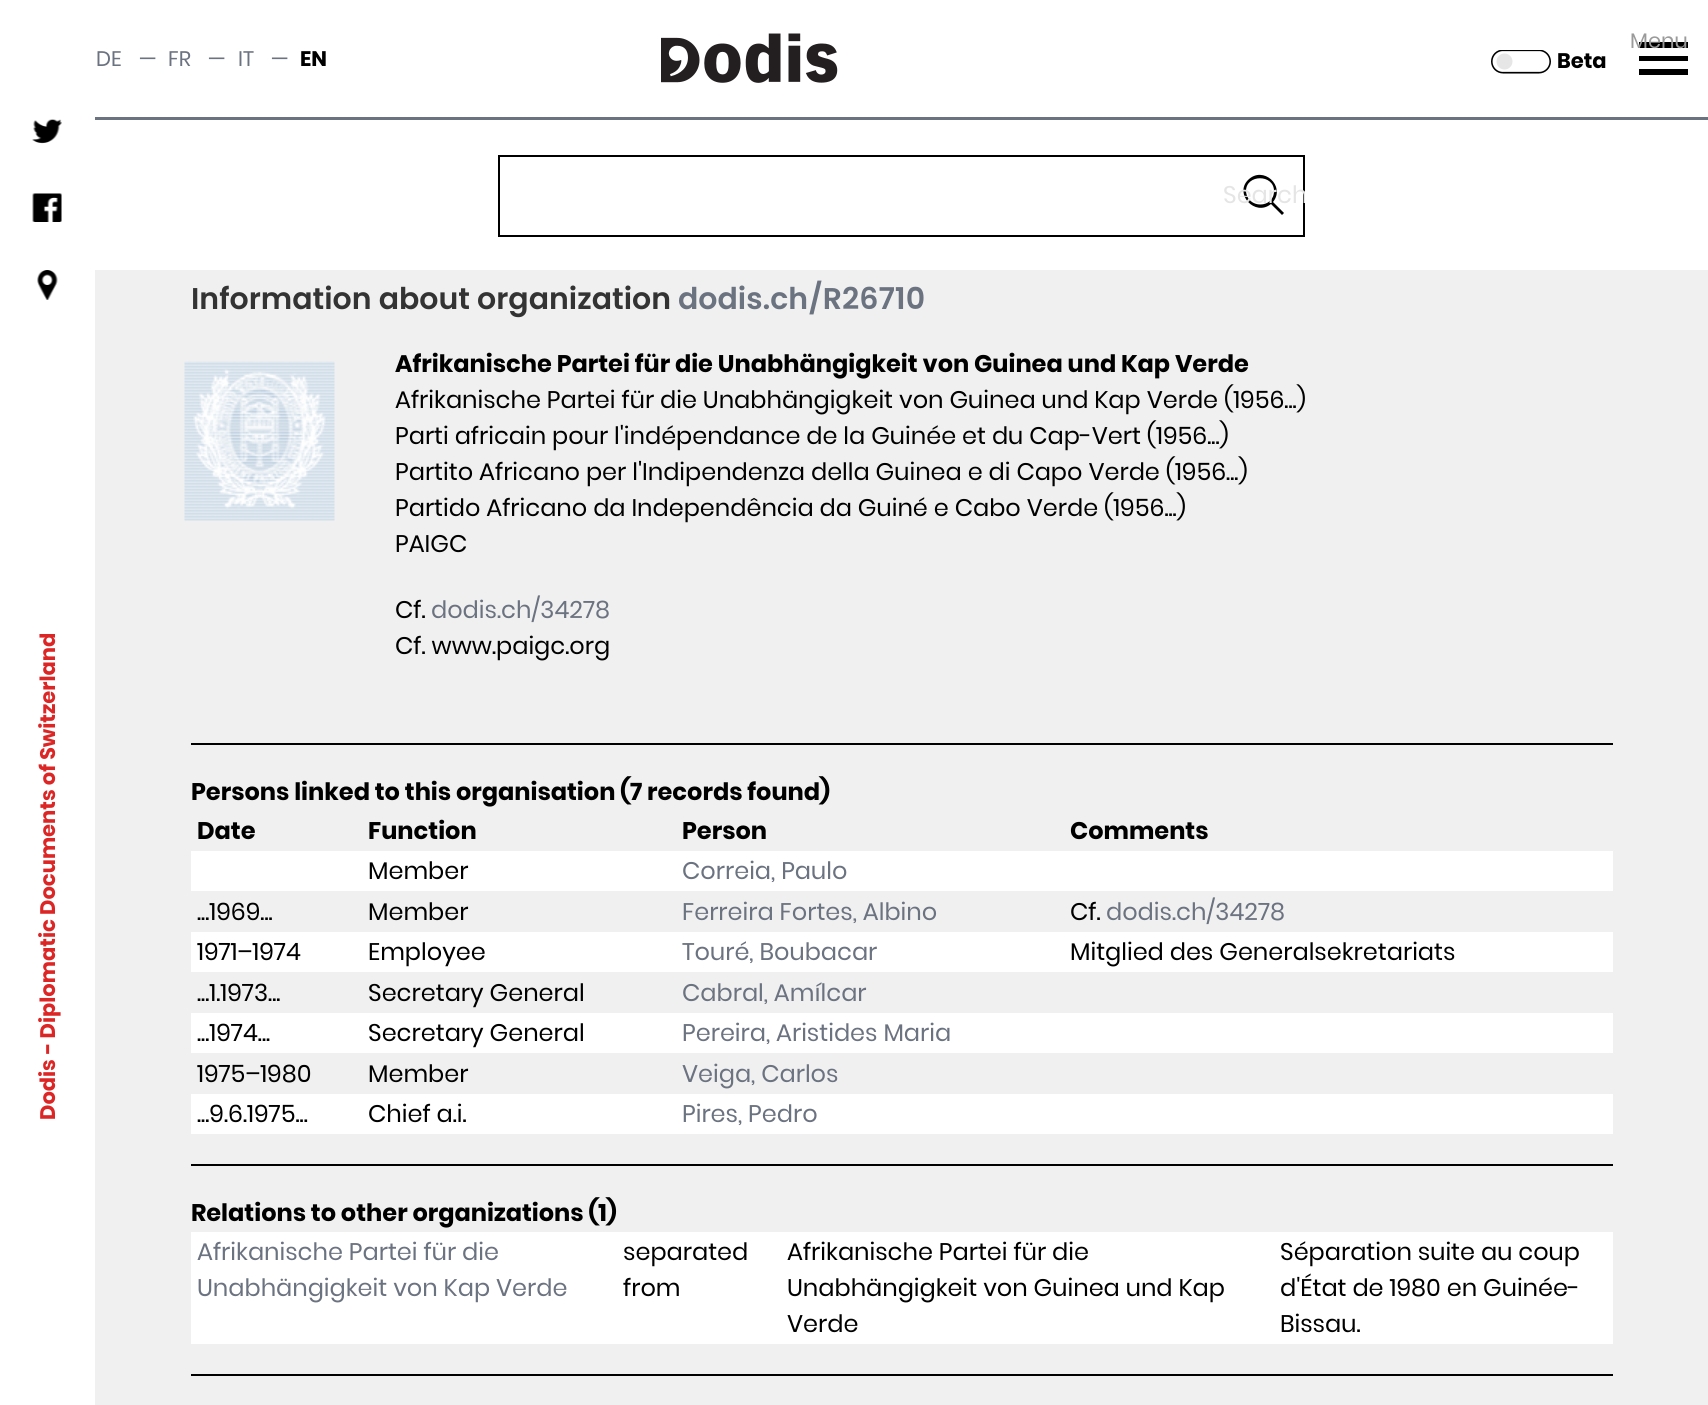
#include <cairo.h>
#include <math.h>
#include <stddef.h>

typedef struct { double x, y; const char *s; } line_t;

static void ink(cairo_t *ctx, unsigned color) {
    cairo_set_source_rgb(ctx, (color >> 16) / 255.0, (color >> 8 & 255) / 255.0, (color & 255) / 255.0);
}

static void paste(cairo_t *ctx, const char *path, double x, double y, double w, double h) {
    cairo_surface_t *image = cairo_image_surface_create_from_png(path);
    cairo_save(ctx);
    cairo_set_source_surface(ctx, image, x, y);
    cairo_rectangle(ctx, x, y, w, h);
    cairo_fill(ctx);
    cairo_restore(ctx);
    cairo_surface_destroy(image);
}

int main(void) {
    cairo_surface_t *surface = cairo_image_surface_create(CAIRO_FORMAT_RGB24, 1708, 1405);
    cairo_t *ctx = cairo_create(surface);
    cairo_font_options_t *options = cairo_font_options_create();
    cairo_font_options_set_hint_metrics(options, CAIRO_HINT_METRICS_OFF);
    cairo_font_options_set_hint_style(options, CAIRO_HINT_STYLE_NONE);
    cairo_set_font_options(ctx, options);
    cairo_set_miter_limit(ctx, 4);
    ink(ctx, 0xFFFFFF);
    cairo_paint(ctx);
    ink(ctx, 0x6B7280);
    cairo_rectangle(ctx, 95, 117, 1613, 3);
    cairo_fill(ctx);
    cairo_select_font_face(ctx, "Poppins", CAIRO_FONT_SLANT_NORMAL, CAIRO_FONT_WEIGHT_NORMAL);
    cairo_set_font_size(ctx, 21);
    {
        static const line_t items[] = {
            {96, 66, "DE"},
            {139, 66, "—"},
            {168, 66, "FR"},
            {208, 66, "—"},
            {238, 66, "IT"},
            {271, 66, "—"},
        };
        for (size_t i = 0; i < sizeof items / sizeof *items; i++) {
            cairo_move_to(ctx, items[i].x, items[i].y);
            cairo_show_text(ctx, items[i].s);
        }
    }
    cairo_select_font_face(ctx, "Poppins", CAIRO_FONT_SLANT_NORMAL, CAIRO_FONT_WEIGHT_BOLD);
    ink(ctx, 0x000000);
    cairo_move_to(ctx, 300, 66);
    cairo_show_text(ctx, "EN");
    paste(ctx, "media/1.png", 661, 33, 177, 50);
    cairo_new_path(ctx);
    cairo_move_to(ctx, 1688, 75);
    cairo_line_to(ctx, 1639, 75);
    cairo_line_to(ctx, 1639, 69);
    cairo_line_to(ctx, 1688, 69);
    cairo_close_path(ctx);
    cairo_move_to(ctx, 1688, 61);
    cairo_line_to(ctx, 1639, 61);
    cairo_line_to(ctx, 1639, 56);
    cairo_line_to(ctx, 1688, 56);
    cairo_close_path(ctx);
    cairo_move_to(ctx, 1688, 48);
    cairo_line_to(ctx, 1639, 48);
    cairo_line_to(ctx, 1639, 42);
    cairo_line_to(ctx, 1688, 42);
    cairo_close_path(ctx);
    cairo_fill(ctx);
    cairo_select_font_face(ctx, "Poppins", CAIRO_FONT_SLANT_NORMAL, CAIRO_FONT_WEIGHT_NORMAL);
    ink(ctx, 0x9A9A9A);
    cairo_move_to(ctx, 1630, 48);
    cairo_show_text(ctx, "Menu");
    paste(ctx, "media/2.png", 1491, 50, 60, 24);
    cairo_select_font_face(ctx, "Poppins", CAIRO_FONT_SLANT_NORMAL, CAIRO_FONT_WEIGHT_BOLD);
    ink(ctx, 0x000000);
    cairo_move_to(ctx, 1557, 68);
    cairo_show_text(ctx, "Beta");
    paste(ctx, "media/3.png", 32, 119, 30, 25);
    paste(ctx, "media/4.png", 32, 193, 30, 29);
    paste(ctx, "media/5.png", 37, 270, 21, 30);
    ink(ctx, 0xDC2626);
    cairo_save(ctx);
    cairo_translate(ctx, 55, 1054);
    cairo_rotate(ctx, -90 * M_PI / 180);
    cairo_move_to(ctx, 0, 0);
    cairo_show_text(ctx, "- Diplomatic Documents of Switzerland");
    cairo_restore(ctx);
    cairo_save(ctx);
    cairo_translate(ctx, 55, 1120);
    cairo_rotate(ctx, -90 * M_PI / 180);
    cairo_move_to(ctx, 0, 0);
    cairo_show_text(ctx, "Dodis");
    cairo_restore(ctx);
    cairo_rectangle(ctx, 499, 156, 805, 80);
    ink(ctx, 0x000000);
    cairo_stroke(ctx);
    cairo_new_path(ctx);
    cairo_move_to(ctx, 1284, 213);
    cairo_line_to(ctx, 1273, 202);
    cairo_curve_to(ctx, 1286, 186, 1263, 165, 1248, 180);
    cairo_curve_to(ctx, 1234, 194, 1255, 217, 1271, 204);
    cairo_line_to(ctx, 1282, 215);
    cairo_close_path(ctx);
    cairo_move_to(ctx, 1246, 191);
    cairo_curve_to(ctx, 1246, 174, 1274, 174, 1274, 191);
    cairo_curve_to(ctx, 1274, 209, 1247, 209, 1246, 191);
    cairo_close_path(ctx);
    cairo_fill(ctx);
    cairo_save(ctx);
    cairo_rectangle(ctx, 1223, 155, 82, 82);
    cairo_clip(ctx);
    cairo_select_font_face(ctx, "Poppins", CAIRO_FONT_SLANT_NORMAL, CAIRO_FONT_WEIGHT_NORMAL);
    cairo_set_font_size(ctx, 24);
    ink(ctx, 0xE5E5E5);
    cairo_move_to(ctx, 1223, 203);
    cairo_show_text(ctx, "Search");
    cairo_restore(ctx);
    ink(ctx, 0xF0F0F0);
    cairo_rectangle(ctx, 95, 270, 1613, 1135);
    cairo_fill(ctx);
    cairo_select_font_face(ctx, "Poppins SemiBold", CAIRO_FONT_SLANT_NORMAL, CAIRO_FONT_WEIGHT_NORMAL);
    cairo_set_font_size(ctx, 30);
    ink(ctx, 0x333333);
    cairo_move_to(ctx, 191, 309);
    cairo_show_text(ctx, "Information about organization");
    ink(ctx, 0x6B7280);
    cairo_move_to(ctx, 678, 309);
    cairo_show_text(ctx, "dodis.ch/R26710");
    paste(ctx, "media/6.png", 184, 361, 151, 160);
    cairo_select_font_face(ctx, "Poppins", CAIRO_FONT_SLANT_NORMAL, CAIRO_FONT_WEIGHT_BOLD);
    cairo_set_font_size(ctx, 24);
    ink(ctx, 0x000000);
    cairo_move_to(ctx, 395, 372);
    cairo_show_text(ctx, "Afrikanische Partei für die Unabhängigkeit von Guinea und Kap Verde");
    cairo_select_font_face(ctx, "Poppins", CAIRO_FONT_SLANT_NORMAL, CAIRO_FONT_WEIGHT_NORMAL);
    {
        static const line_t items[] = {
            {395, 408, "Afrikanische Partei für die Unabhängigkeit von Guinea und Kap Verde (1956...)"},
            {395, 444, "Parti africain pour l'indépendance de la Guinée et du Cap-Vert (1956...)"},
            {395, 480, "Partito Africano per l'Indipendenza della Guinea e di Capo Verde (1956...)"},
            {395, 516, "Partido Africano da Independência da Guiné e Cabo Verde (1956...)"},
            {395, 552, "PAIGC"},
            {395, 618, "Cf."},
        };
        for (size_t i = 0; i < sizeof items / sizeof *items; i++) {
            cairo_move_to(ctx, items[i].x, items[i].y);
            cairo_show_text(ctx, items[i].s);
        }
    }
    ink(ctx, 0x6B7280);
    cairo_move_to(ctx, 431, 618);
    cairo_show_text(ctx, "dodis.ch/34278");
    ink(ctx, 0x000000);
    cairo_move_to(ctx, 395, 654);
    cairo_show_text(ctx, "Cf. www.paigc.org");
    cairo_rectangle(ctx, 191, 743, 1422, 2);
    cairo_fill(ctx);
    cairo_select_font_face(ctx, "Poppins", CAIRO_FONT_SLANT_NORMAL, CAIRO_FONT_WEIGHT_BOLD);
    {
        static const line_t items[] = {
            {191, 800, "Persons linked to this organisation (7 records found)"},
            {197, 839, "Date"},
            {368, 839, "Function"},
            {682, 839, "Person"},
            {1070, 839, "Comments"},
        };
        for (size_t i = 0; i < sizeof items / sizeof *items; i++) {
            cairo_move_to(ctx, items[i].x, items[i].y);
            cairo_show_text(ctx, items[i].s);
        }
    }
    ink(ctx, 0xFFFFFF);
    cairo_rectangle(ctx, 191, 851, 1422, 40);
    cairo_fill(ctx);
    cairo_select_font_face(ctx, "Poppins", CAIRO_FONT_SLANT_NORMAL, CAIRO_FONT_WEIGHT_NORMAL);
    ink(ctx, 0x000000);
    cairo_move_to(ctx, 368, 879);
    cairo_show_text(ctx, "Member");
    ink(ctx, 0x6B7280);
    cairo_move_to(ctx, 682, 879);
    cairo_show_text(ctx, "Correia, Paulo");
    ink(ctx, 0x000000);
    cairo_move_to(ctx, 197, 920);
    cairo_show_text(ctx, "...1969...");
    cairo_move_to(ctx, 368, 920);
    cairo_show_text(ctx, "Member");
    ink(ctx, 0x6B7280);
    cairo_move_to(ctx, 682, 920);
    cairo_show_text(ctx, "Ferreira Fortes, Albino");
    ink(ctx, 0x000000);
    cairo_move_to(ctx, 1070, 920);
    cairo_show_text(ctx, "Cf.");
    ink(ctx, 0x6B7280);
    cairo_move_to(ctx, 1106, 920);
    cairo_show_text(ctx, "dodis.ch/34278");
    ink(ctx, 0xFFFFFF);
    cairo_rectangle(ctx, 191, 932, 1422, 40);
    cairo_fill(ctx);
    ink(ctx, 0x000000);
    cairo_move_to(ctx, 197, 960);
    cairo_show_text(ctx, "1971–1974");
    cairo_move_to(ctx, 368, 960);
    cairo_show_text(ctx, "Employee");
    ink(ctx, 0x6B7280);
    cairo_move_to(ctx, 682, 960);
    cairo_show_text(ctx, "Touré, Boubacar");
    ink(ctx, 0x000000);
    {
        static const line_t items[] = {
            {1070, 960, "Mitglied des Generalsekretariats"},
            {197, 1001, "...1.1973..."},
            {368, 1001, "Secretary General"},
        };
        for (size_t i = 0; i < sizeof items / sizeof *items; i++) {
            cairo_move_to(ctx, items[i].x, items[i].y);
            cairo_show_text(ctx, items[i].s);
        }
    }
    ink(ctx, 0x6B7280);
    cairo_move_to(ctx, 682, 1001);
    cairo_show_text(ctx, "Cabral, Amílcar");
    ink(ctx, 0xFFFFFF);
    cairo_rectangle(ctx, 191, 1013, 1422, 40);
    cairo_fill(ctx);
    ink(ctx, 0x000000);
    cairo_move_to(ctx, 197, 1041);
    cairo_show_text(ctx, "...1974...");
    cairo_move_to(ctx, 368, 1041);
    cairo_show_text(ctx, "Secretary General");
    ink(ctx, 0x6B7280);
    cairo_move_to(ctx, 682, 1041);
    cairo_show_text(ctx, "Pereira, Aristides Maria");
    ink(ctx, 0x000000);
    cairo_move_to(ctx, 197, 1082);
    cairo_show_text(ctx, "1975–1980");
    cairo_move_to(ctx, 368, 1082);
    cairo_show_text(ctx, "Member");
    ink(ctx, 0x6B7280);
    cairo_move_to(ctx, 682, 1082);
    cairo_show_text(ctx, "Veiga, Carlos");
    ink(ctx, 0xFFFFFF);
    cairo_rectangle(ctx, 191, 1094, 1422, 40);
    cairo_fill(ctx);
    ink(ctx, 0x000000);
    cairo_move_to(ctx, 197, 1122);
    cairo_show_text(ctx, "...9.6.1975...");
    cairo_move_to(ctx, 368, 1122);
    cairo_show_text(ctx, "Chief a.i.");
    ink(ctx, 0x6B7280);
    cairo_move_to(ctx, 682, 1122);
    cairo_show_text(ctx, "Pires, Pedro");
    ink(ctx, 0x000000);
    cairo_rectangle(ctx, 191, 1164, 1422, 2);
    cairo_fill(ctx);
    cairo_select_font_face(ctx, "Poppins", CAIRO_FONT_SLANT_NORMAL, CAIRO_FONT_WEIGHT_BOLD);
    cairo_move_to(ctx, 191, 1221);
    cairo_show_text(ctx, "Relations to other organizations (1)");
    ink(ctx, 0xFFFFFF);
    cairo_rectangle(ctx, 191, 1232, 1422, 112);
    cairo_fill(ctx);
    cairo_select_font_face(ctx, "Poppins", CAIRO_FONT_SLANT_NORMAL, CAIRO_FONT_WEIGHT_NORMAL);
    ink(ctx, 0x6B7280);
    cairo_move_to(ctx, 197, 1260);
    cairo_show_text(ctx, "Afrikanische Partei für die");
    cairo_move_to(ctx, 197, 1296);
    cairo_show_text(ctx, "Unabhängigkeit von Kap Verde");
    ink(ctx, 0x000000);
    {
        static const line_t items[] = {
            {623, 1260, "separated"},
            {623, 1296, "from"},
            {787, 1260, "Afrikanische Partei für die"},
            {787, 1296, "Unabhängigkeit von Guinea und Kap"},
            {787, 1332, "Verde"},
            {1280, 1260, "Séparation suite au coup"},
            {1280, 1296, "d'État de 1980 en Guinée-"},
            {1280, 1332, "Bissau."},
        };
        for (size_t i = 0; i < sizeof items / sizeof *items; i++) {
            cairo_move_to(ctx, items[i].x, items[i].y);
            cairo_show_text(ctx, items[i].s);
        }
    }
    cairo_rectangle(ctx, 191, 1374, 1422, 2);
    cairo_fill(ctx);
    cairo_surface_write_to_png(surface, "image.png");
    cairo_font_options_destroy(options);
    cairo_destroy(ctx);
    cairo_surface_destroy(surface);
    return 0;
}
